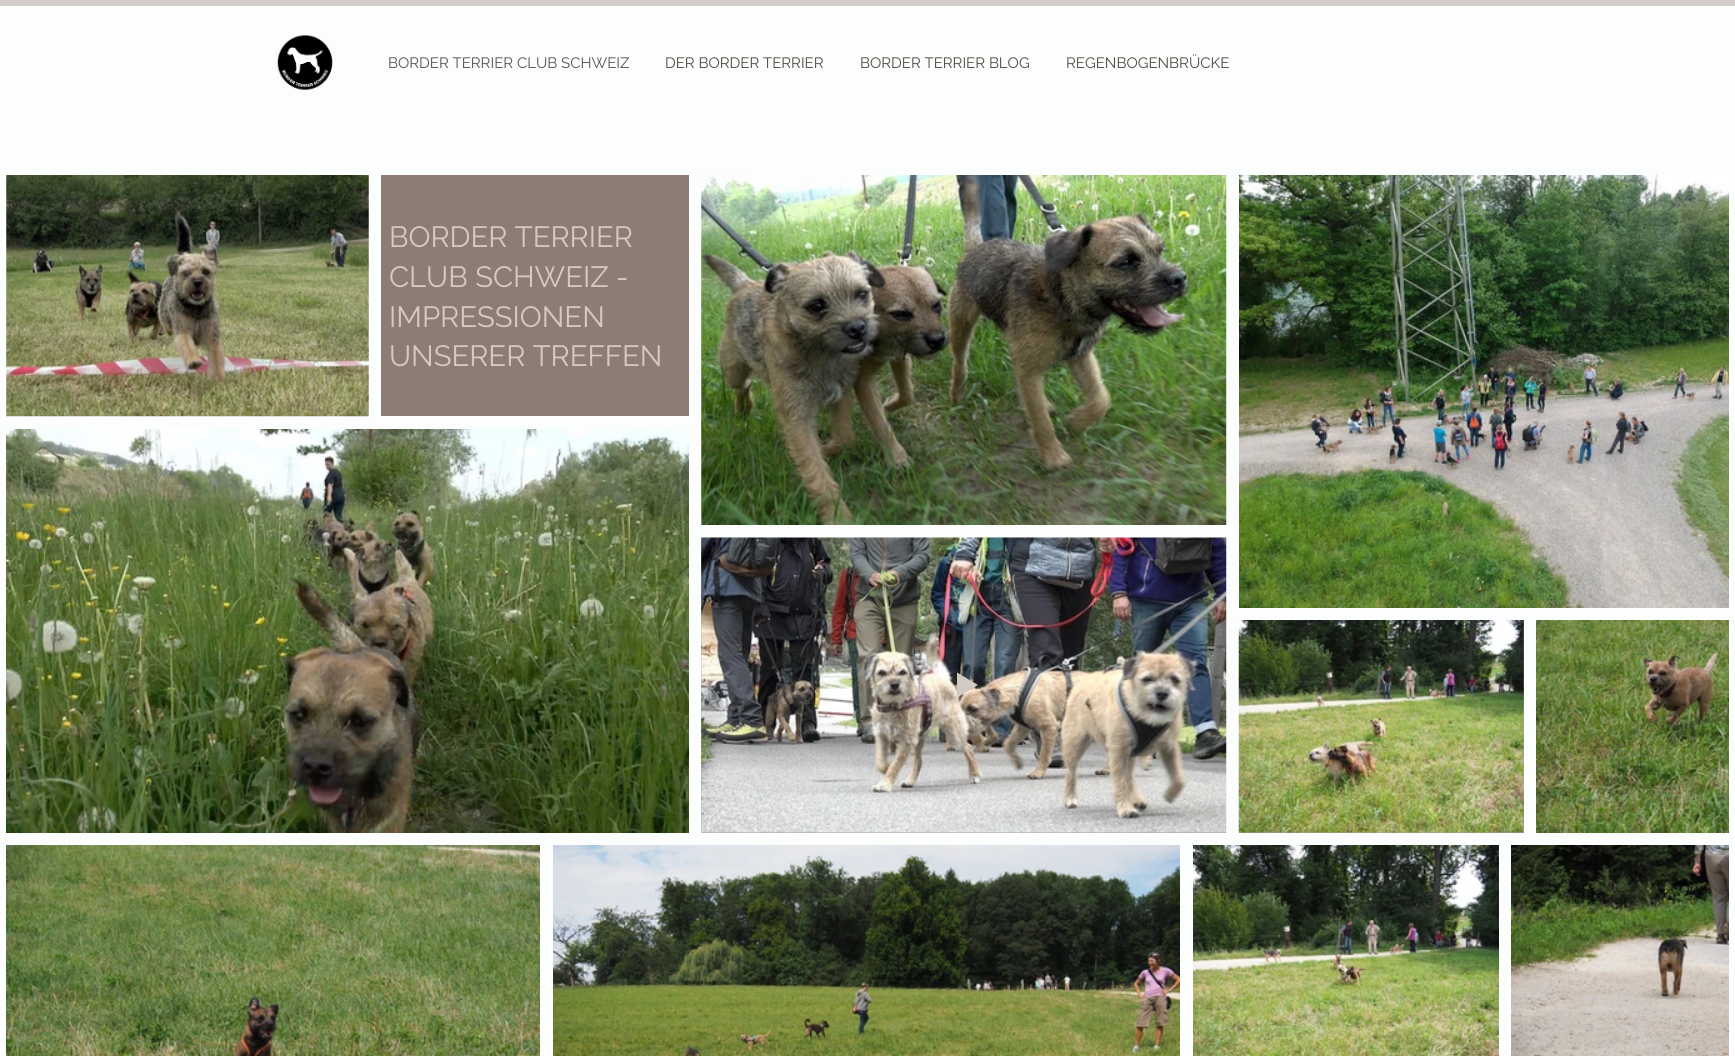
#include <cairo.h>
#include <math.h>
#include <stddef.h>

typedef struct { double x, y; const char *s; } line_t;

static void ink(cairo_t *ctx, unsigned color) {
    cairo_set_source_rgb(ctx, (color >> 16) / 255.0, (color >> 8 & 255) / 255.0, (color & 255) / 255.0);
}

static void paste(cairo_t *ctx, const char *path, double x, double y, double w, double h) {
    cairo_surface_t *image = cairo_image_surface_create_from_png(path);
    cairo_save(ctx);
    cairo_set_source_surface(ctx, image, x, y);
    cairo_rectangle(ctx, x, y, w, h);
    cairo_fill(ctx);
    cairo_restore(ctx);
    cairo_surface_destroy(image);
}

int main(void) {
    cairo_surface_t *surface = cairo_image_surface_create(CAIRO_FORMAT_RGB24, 1735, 1056);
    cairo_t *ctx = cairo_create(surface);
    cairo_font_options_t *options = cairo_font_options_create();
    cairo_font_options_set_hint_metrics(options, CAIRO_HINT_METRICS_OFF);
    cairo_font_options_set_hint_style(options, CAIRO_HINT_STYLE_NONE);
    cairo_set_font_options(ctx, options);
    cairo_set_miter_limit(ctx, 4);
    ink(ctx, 0xFCFEFD);
    cairo_paint(ctx);
    ink(ctx, 0xD3CECB);
    cairo_rectangle(ctx, 0, 0, 1735, 6);
    cairo_fill(ctx);
    paste(ctx, "media/1.png", 277, 35, 56, 55);
    cairo_select_font_face(ctx, "Raleway Thin", CAIRO_FONT_SLANT_NORMAL, CAIRO_FONT_WEIGHT_NORMAL);
    cairo_set_font_size(ctx, 15);
    ink(ctx, 0x545454);
    cairo_move_to(ctx, 388, 68);
    cairo_show_text(ctx, "BORDER TERRIER CLUB SCHWEIZ");
    ink(ctx, 0x544943);
    {
        static const line_t items[] = {
            {665, 68, "DER BORDER TERRIER"},
            {860, 68, "BORDER TERRIER BLOG"},
            {1066, 68, "REGENBOGENBRÜCKE"},
        };
        for (size_t i = 0; i < sizeof items / sizeof *items; i++) {
            cairo_move_to(ctx, items[i].x, items[i].y);
            cairo_show_text(ctx, items[i].s);
        }
    }
    paste(ctx, "media/2.png", 6, 175, 363, 242);
    ink(ctx, 0x8C7C73);
    cairo_rectangle(ctx, 381, 175, 308, 241);
    cairo_fill(ctx);
    cairo_set_font_size(ctx, 29.25);
    ink(ctx, 0xD4CAC5);
    {
        static const line_t items[] = {
            {389, 247, "BORDER TERRIER"},
            {389, 287, "CLUB SCHWEIZ -"},
            {389, 327, "IMPRESSIONEN"},
            {389, 366, "UNSERER TREFFEN"},
        };
        for (size_t i = 0; i < sizeof items / sizeof *items; i++) {
            cairo_move_to(ctx, items[i].x, items[i].y);
            cairo_show_text(ctx, items[i].s);
        }
    }
    paste(ctx, "media/3.png", 701, 175, 526, 350);
    paste(ctx, "media/4.png", 1239, 175, 490, 433);
    paste(ctx, "media/5.png", 6, 429, 683, 404);
    ink(ctx, 0xA99E98);
    cairo_rectangle(ctx, 701, 538, 525, 295);
    cairo_fill(ctx);
    paste(ctx, "media/6.png", 701, 537, 526, 296);
    ink(ctx, 0xD4CAC5);
    cairo_new_path(ctx);
    cairo_move_to(ctx, 978, 685);
    cairo_line_to(ctx, 957, 697.5);
    cairo_line_to(ctx, 957, 672.5);
    cairo_close_path(ctx);
    cairo_fill(ctx);
    ink(ctx, 0xA99E98);
    cairo_rectangle(ctx, 1239, 620, 285, 213);
    cairo_fill(ctx);
    paste(ctx, "media/7.png", 1238, 620, 286, 213);
    paste(ctx, "media/8.png", 1536, 620, 193, 213);
    paste(ctx, "media/9.png", 6, 845, 534, 211);
    paste(ctx, "media/10.png", 553, 845, 627, 211);
    paste(ctx, "media/11.png", 1193, 845, 306, 211);
    paste(ctx, "media/12.png", 1511, 845, 218, 211);
    cairo_surface_write_to_png(surface, "image.png");
    cairo_font_options_destroy(options);
    cairo_destroy(ctx);
    cairo_surface_destroy(surface);
    return 0;
}
